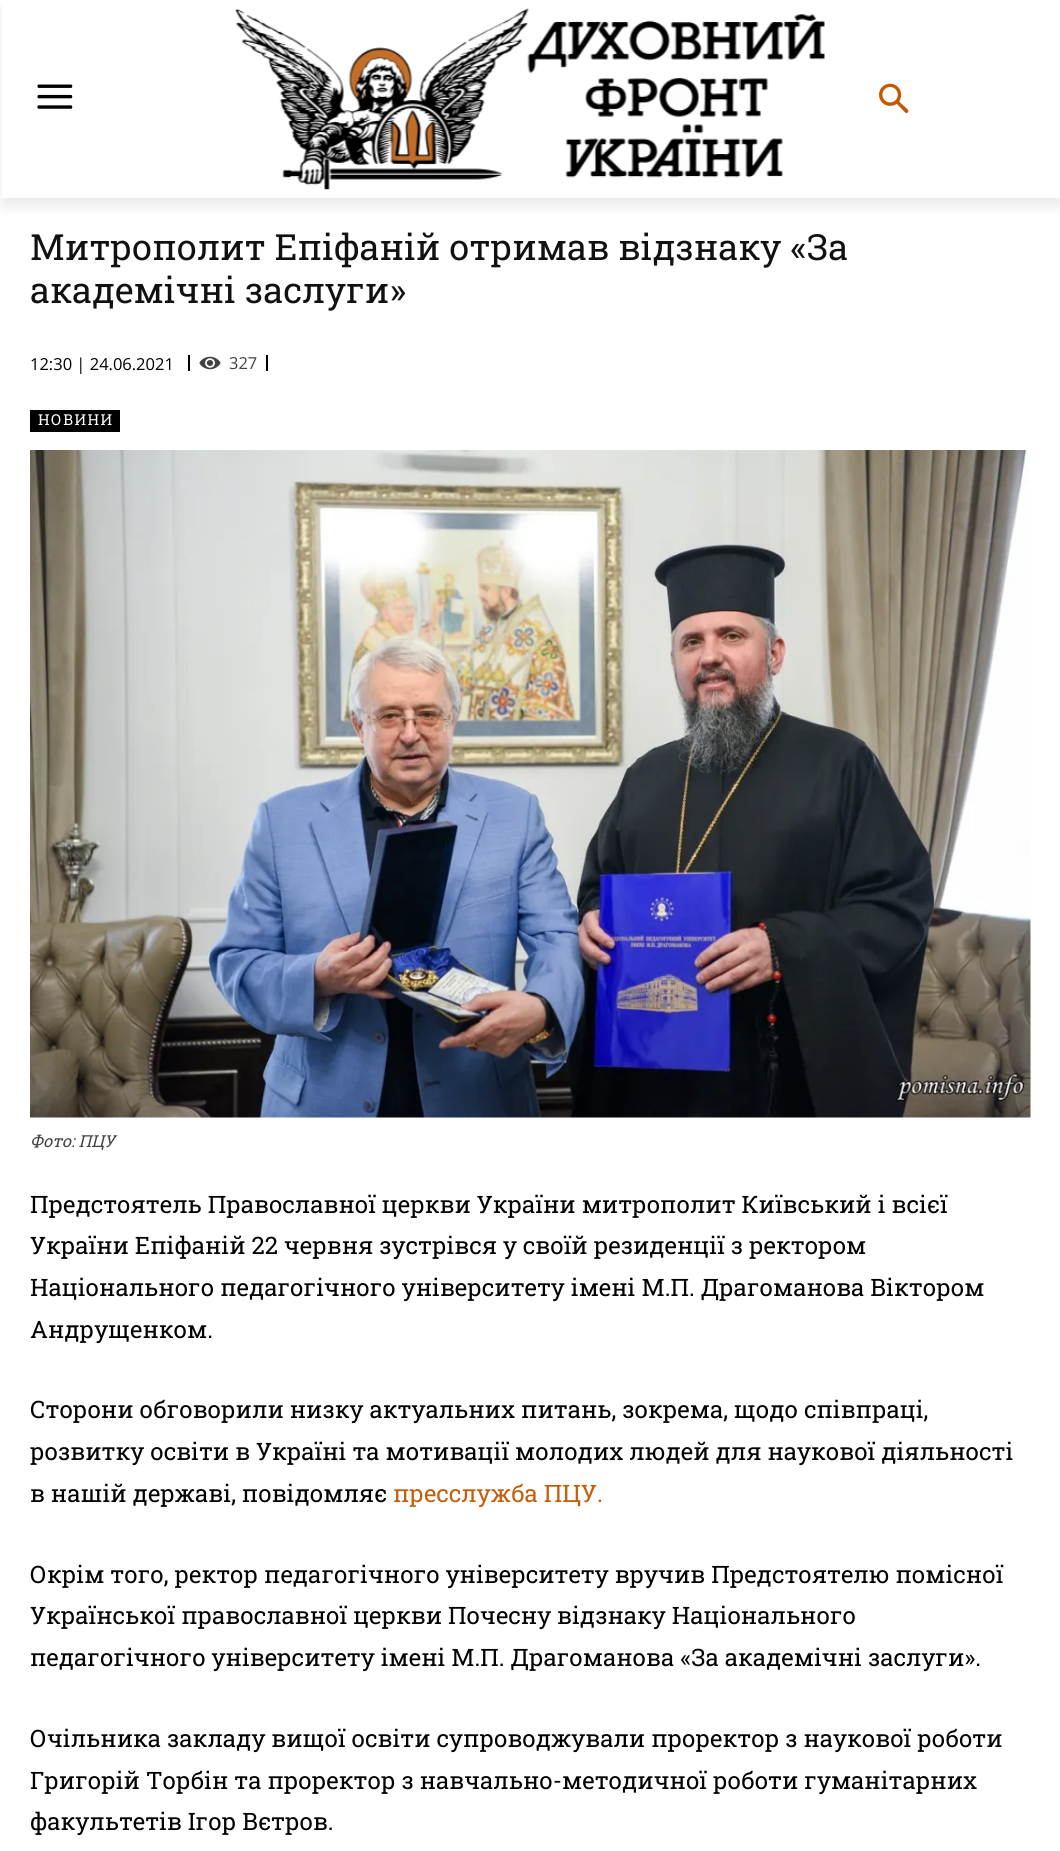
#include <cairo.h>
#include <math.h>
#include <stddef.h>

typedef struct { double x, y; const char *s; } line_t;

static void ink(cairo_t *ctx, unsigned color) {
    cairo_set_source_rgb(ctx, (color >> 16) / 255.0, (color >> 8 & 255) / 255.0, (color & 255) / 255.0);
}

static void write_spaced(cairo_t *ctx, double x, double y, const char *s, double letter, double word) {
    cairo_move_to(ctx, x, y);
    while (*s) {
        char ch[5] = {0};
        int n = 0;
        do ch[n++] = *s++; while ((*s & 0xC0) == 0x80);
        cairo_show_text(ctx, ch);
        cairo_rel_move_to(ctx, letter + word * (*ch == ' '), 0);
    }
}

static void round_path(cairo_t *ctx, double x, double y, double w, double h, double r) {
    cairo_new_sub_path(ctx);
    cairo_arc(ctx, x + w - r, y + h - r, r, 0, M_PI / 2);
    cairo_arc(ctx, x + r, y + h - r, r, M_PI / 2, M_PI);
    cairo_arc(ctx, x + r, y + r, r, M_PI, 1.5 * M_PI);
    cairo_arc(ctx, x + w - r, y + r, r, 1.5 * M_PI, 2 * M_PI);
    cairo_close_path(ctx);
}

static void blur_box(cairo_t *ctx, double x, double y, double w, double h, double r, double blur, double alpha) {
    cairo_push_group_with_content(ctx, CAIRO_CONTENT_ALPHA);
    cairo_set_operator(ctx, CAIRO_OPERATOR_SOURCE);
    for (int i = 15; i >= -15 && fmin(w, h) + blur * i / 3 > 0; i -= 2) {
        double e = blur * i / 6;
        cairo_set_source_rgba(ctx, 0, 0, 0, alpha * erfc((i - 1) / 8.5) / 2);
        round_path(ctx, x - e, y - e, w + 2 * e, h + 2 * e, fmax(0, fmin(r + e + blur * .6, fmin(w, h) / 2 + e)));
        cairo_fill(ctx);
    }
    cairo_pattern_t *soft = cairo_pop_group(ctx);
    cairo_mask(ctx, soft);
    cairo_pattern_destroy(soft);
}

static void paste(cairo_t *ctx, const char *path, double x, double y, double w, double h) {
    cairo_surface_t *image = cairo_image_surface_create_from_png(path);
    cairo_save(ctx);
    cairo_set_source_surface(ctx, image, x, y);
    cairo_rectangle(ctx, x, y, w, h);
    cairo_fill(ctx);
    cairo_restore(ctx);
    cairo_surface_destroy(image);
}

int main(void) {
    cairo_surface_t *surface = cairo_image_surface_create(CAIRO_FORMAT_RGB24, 1060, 1851);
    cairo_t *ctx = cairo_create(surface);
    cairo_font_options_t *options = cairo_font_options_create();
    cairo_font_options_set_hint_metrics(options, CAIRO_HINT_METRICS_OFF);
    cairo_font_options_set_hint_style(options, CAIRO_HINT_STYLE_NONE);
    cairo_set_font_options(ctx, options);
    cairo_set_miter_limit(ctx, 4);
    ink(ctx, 0xFFFFFF);
    cairo_paint(ctx);
    paste(ctx, "media/1.png", 37, 84, 36, 25);
    paste(ctx, "media/2.png", 235, 8, 590, 182);
    paste(ctx, "media/3.png", 879, 83, 30, 30);
    cairo_save(ctx);
    cairo_set_fill_rule(ctx, CAIRO_FILL_RULE_EVEN_ODD);
    cairo_new_path(ctx);
    cairo_move_to(ctx, 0, 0);
    cairo_line_to(ctx, 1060, 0);
    cairo_line_to(ctx, 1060, 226);
    cairo_line_to(ctx, 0, 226);
    cairo_close_path(ctx);
    cairo_move_to(ctx, 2, 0);
    cairo_line_to(ctx, 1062, 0);
    cairo_line_to(ctx, 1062, 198);
    cairo_line_to(ctx, 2, 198);
    cairo_close_path(ctx);
    cairo_clip(ctx);
    ink(ctx, 0x000000);
    blur_box(ctx, 2, 9, 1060, 198, 0, 6, 0.08);
    cairo_restore(ctx);
    cairo_select_font_face(ctx, "Roboto Slab", CAIRO_FONT_SLANT_NORMAL, CAIRO_FONT_WEIGHT_NORMAL);
    cairo_set_font_size(ctx, 36);
    ink(ctx, 0x111111);
    cairo_move_to(ctx, 30, 260);
    cairo_show_text(ctx, "Митрополит Епіфаній отримав відзнаку «За");
    cairo_move_to(ctx, 30, 303);
    cairo_show_text(ctx, "академічні заслуги»");
    cairo_select_font_face(ctx, "Open Sans", CAIRO_FONT_SLANT_NORMAL, CAIRO_FONT_WEIGHT_NORMAL);
    cairo_set_font_size(ctx, 16.5);
    ink(ctx, 0x000000);
    cairo_move_to(ctx, 30, 370);
    cairo_show_text(ctx, "12:30 | 24.06.2021");
    cairo_rectangle(ctx, 188, 355, 2, 16);
    cairo_fill(ctx);
    paste(ctx, "media/4.png", 199, 356, 22, 14);
    ink(ctx, 0x444444);
    cairo_move_to(ctx, 229, 369);
    cairo_show_text(ctx, "327");
    ink(ctx, 0x000000);
    cairo_rectangle(ctx, 266, 355, 2, 16);
    cairo_fill(ctx);
    cairo_rectangle(ctx, 30, 410, 90, 22);
    cairo_fill(ctx);
    cairo_select_font_face(ctx, "Roboto Slab", CAIRO_FONT_SLANT_NORMAL, CAIRO_FONT_WEIGHT_NORMAL);
    cairo_set_font_size(ctx, 15);
    ink(ctx, 0xFFFFFF);
    write_spaced(ctx, 38, 425, "НОВИНИ", 1.5, 0);
    paste(ctx, "media/5.png", 30, 450, 1001, 668);
    cairo_select_font_face(ctx, "Roboto Slab", CAIRO_FONT_SLANT_ITALIC, CAIRO_FONT_WEIGHT_NORMAL);
    cairo_set_font_size(ctx, 16.5);
    ink(ctx, 0x444444);
    cairo_move_to(ctx, 30, 1147);
    cairo_show_text(ctx, "Фото: ПЦУ");
    cairo_select_font_face(ctx, "Roboto Slab", CAIRO_FONT_SLANT_NORMAL, CAIRO_FONT_WEIGHT_NORMAL);
    cairo_set_font_size(ctx, 24);
    ink(ctx, 0x000000);
    {
        static const line_t items[] = {
            {30, 1213, "Предстоятель Православної церкви України митрополит Київський і всієї"},
            {30, 1254, "України Епіфаній 22 червня зустрівся у своїй резиденції з ректором"},
            {30, 1296, "Національного педагогічного університету імені М.П. Драгоманова Віктором"},
            {30, 1338, "Андрущенком."},
            {30, 1418, "Сторони обговорили низку актуальних питань, зокрема, щодо співпраці,"},
            {30, 1460, "розвитку освіти в Україні та мотивації молодих людей для наукової діяльності"},
            {30, 1502, "в нашій державі, повідомляє"},
        };
        for (size_t i = 0; i < sizeof items / sizeof *items; i++) {
            cairo_move_to(ctx, items[i].x, items[i].y);
            cairo_show_text(ctx, items[i].s);
        }
    }
    ink(ctx, 0xC45E0B);
    cairo_move_to(ctx, 393, 1502);
    cairo_show_text(ctx, "пресслужба ПЦУ.");
    ink(ctx, 0x000000);
    {
        static const line_t items[] = {
            {30, 1583, "Окрім того, ректор педагогічного університету вручив Предстоятелю помісної"},
            {30, 1624, "Української православної церкви Почесну відзнаку Національного"},
            {30, 1666, "педагогічного університету імені М.П. Драгоманова «За академічні заслуги»."},
            {30, 1747, "Очільника закладу вищої освіти супроводжували проректор з наукової роботи"},
            {30, 1789, "Григорій Торбін та проректор з навчально-методичної роботи гуманітарних"},
            {30, 1830, "факультетів Ігор Вєтров."},
        };
        for (size_t i = 0; i < sizeof items / sizeof *items; i++) {
            cairo_move_to(ctx, items[i].x, items[i].y);
            cairo_show_text(ctx, items[i].s);
        }
    }
    cairo_surface_write_to_png(surface, "image.png");
    cairo_font_options_destroy(options);
    cairo_destroy(ctx);
    cairo_surface_destroy(surface);
    return 0;
}
